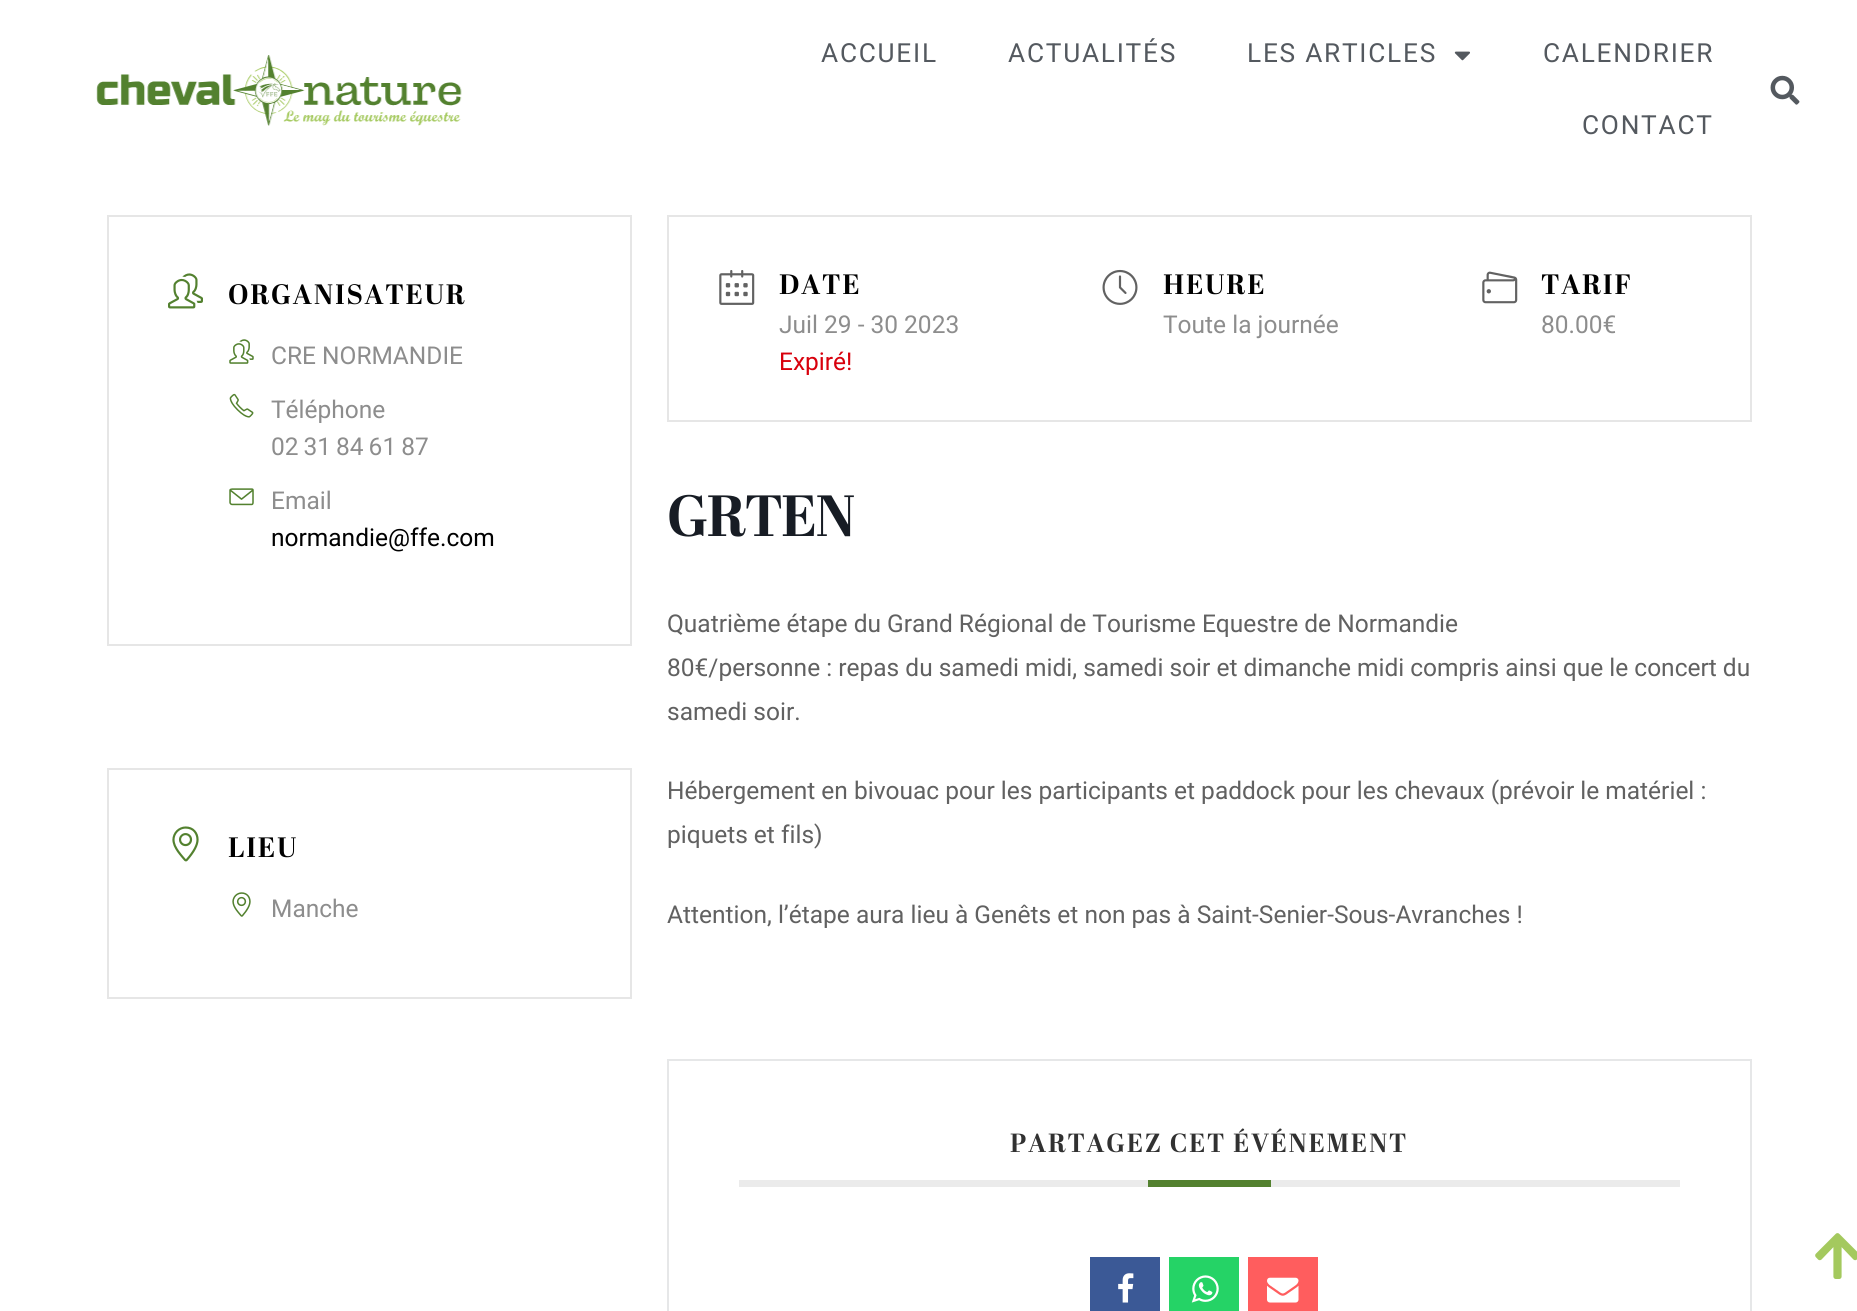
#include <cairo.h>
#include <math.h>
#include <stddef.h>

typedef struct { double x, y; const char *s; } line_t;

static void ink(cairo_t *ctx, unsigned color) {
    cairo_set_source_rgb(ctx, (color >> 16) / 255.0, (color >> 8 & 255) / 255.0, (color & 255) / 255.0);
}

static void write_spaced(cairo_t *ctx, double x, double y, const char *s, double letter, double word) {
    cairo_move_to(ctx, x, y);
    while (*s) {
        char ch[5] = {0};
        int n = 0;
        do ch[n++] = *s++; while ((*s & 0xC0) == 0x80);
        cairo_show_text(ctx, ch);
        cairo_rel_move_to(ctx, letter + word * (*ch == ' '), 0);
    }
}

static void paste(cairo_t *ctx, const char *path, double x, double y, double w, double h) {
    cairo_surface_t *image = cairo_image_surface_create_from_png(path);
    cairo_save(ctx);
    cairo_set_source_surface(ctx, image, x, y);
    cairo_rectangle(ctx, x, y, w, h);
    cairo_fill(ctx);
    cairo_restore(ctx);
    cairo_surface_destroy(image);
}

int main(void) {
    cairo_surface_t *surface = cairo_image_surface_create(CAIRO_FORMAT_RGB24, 1857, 1311);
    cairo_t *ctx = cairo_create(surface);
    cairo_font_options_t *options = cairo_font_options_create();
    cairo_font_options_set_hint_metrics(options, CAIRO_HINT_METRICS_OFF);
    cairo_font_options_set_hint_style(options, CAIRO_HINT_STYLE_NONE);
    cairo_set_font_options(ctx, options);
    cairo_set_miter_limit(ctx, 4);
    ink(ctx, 0xFFFFFF);
    cairo_paint(ctx);
    paste(ctx, "media/1.png", 96, 55, 366, 71);
    cairo_select_font_face(ctx, "Roboto", CAIRO_FONT_SLANT_NORMAL, CAIRO_FONT_WEIGHT_NORMAL);
    cairo_set_font_size(ctx, 26.25);
    ink(ctx, 0x54595F);
    {
        static const line_t items[] = {
            {821, 62, "ACCUEIL"},
            {1008, 62, "ACTUALITÉS"},
            {1247, 62, "LES ARTICLES"},
        };
        for (size_t i = 0; i < sizeof items / sizeof *items; i++) {
            write_spaced(ctx, items[i].x, items[i].y, items[i].s, 1.75, 0);
        }
    }
    paste(ctx, "media/2.png", 1454, 51, 16, 10);
    write_spaced(ctx, 1543, 62, "CALENDRIER", 1.75, 0);
    write_spaced(ctx, 1582, 134, "CONTACT", 1.75, 0);
    paste(ctx, "media/3.png", 1770, 75, 30, 30);
    cairo_rectangle(ctx, 108, 216, 523, 429);
    ink(ctx, 0xE6E6E6);
    cairo_stroke(ctx);
    paste(ctx, "media/4.png", 168, 273, 35, 36);
    cairo_select_font_face(ctx, "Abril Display", CAIRO_FONT_SLANT_NORMAL, CAIRO_FONT_WEIGHT_BOLD);
    cairo_set_font_size(ctx, 28);
    ink(ctx, 0x000000);
    write_spaced(ctx, 228, 304, "ORGANISATEUR", 1.75, 0);
    paste(ctx, "media/5.png", 229, 339, 25, 25);
    cairo_select_font_face(ctx, "Roboto", CAIRO_FONT_SLANT_NORMAL, CAIRO_FONT_WEIGHT_NORMAL);
    cairo_set_font_size(ctx, 24.5);
    ink(ctx, 0x8D8D8D);
    cairo_move_to(ctx, 271, 364);
    cairo_show_text(ctx, "CRE NORMANDIE");
    paste(ctx, "media/6.png", 229, 393, 25, 25);
    cairo_move_to(ctx, 271, 418);
    cairo_show_text(ctx, "Téléphone");
    cairo_move_to(ctx, 271, 455);
    cairo_show_text(ctx, "02 31 84 61 87");
    paste(ctx, "media/7.png", 229, 488, 25, 18);
    cairo_move_to(ctx, 271, 509);
    cairo_show_text(ctx, "Email");
    ink(ctx, 0x000000);
    cairo_move_to(ctx, 271, 546);
    cairo_show_text(ctx, "normandie@ffe.com");
    cairo_rectangle(ctx, 108, 769, 523, 229);
    ink(ctx, 0xE6E6E6);
    cairo_stroke(ctx);
    paste(ctx, "media/8.png", 172, 826, 27, 36);
    cairo_select_font_face(ctx, "Abril Display", CAIRO_FONT_SLANT_NORMAL, CAIRO_FONT_WEIGHT_BOLD);
    cairo_set_font_size(ctx, 28);
    ink(ctx, 0x000000);
    write_spaced(ctx, 228, 857, "LIEU", 1.75, 0);
    paste(ctx, "media/9.png", 232, 892, 19, 25);
    cairo_select_font_face(ctx, "Roboto", CAIRO_FONT_SLANT_NORMAL, CAIRO_FONT_WEIGHT_NORMAL);
    cairo_set_font_size(ctx, 24.5);
    ink(ctx, 0x8D8D8D);
    cairo_move_to(ctx, 271, 917);
    cairo_show_text(ctx, "Manche");
    cairo_rectangle(ctx, 668, 216, 1083, 205);
    ink(ctx, 0xE6E6E6);
    cairo_stroke(ctx);
    paste(ctx, "media/10.png", 719, 270, 36, 35);
    cairo_select_font_face(ctx, "Abril Display", CAIRO_FONT_SLANT_NORMAL, CAIRO_FONT_WEIGHT_BOLD);
    cairo_set_font_size(ctx, 28);
    ink(ctx, 0x000000);
    write_spaced(ctx, 779, 294, "DATE", 1.75, 0);
    cairo_select_font_face(ctx, "Roboto", CAIRO_FONT_SLANT_NORMAL, CAIRO_FONT_WEIGHT_NORMAL);
    cairo_set_font_size(ctx, 24.5);
    ink(ctx, 0x8D8D8D);
    cairo_move_to(ctx, 779, 333);
    cairo_show_text(ctx, "Juil 29 - 30 2023");
    ink(ctx, 0xD8000C);
    cairo_move_to(ctx, 779, 370);
    cairo_show_text(ctx, "Expiré!");
    paste(ctx, "media/11.png", 1102, 269, 36, 36);
    cairo_select_font_face(ctx, "Abril Display", CAIRO_FONT_SLANT_NORMAL, CAIRO_FONT_WEIGHT_BOLD);
    cairo_set_font_size(ctx, 28);
    ink(ctx, 0x000000);
    write_spaced(ctx, 1163, 294, "HEURE", 1.75, 0);
    cairo_select_font_face(ctx, "Roboto", CAIRO_FONT_SLANT_NORMAL, CAIRO_FONT_WEIGHT_NORMAL);
    cairo_set_font_size(ctx, 24.5);
    ink(ctx, 0x8D8D8D);
    cairo_move_to(ctx, 1163, 333);
    cairo_show_text(ctx, "Toute la journée");
    paste(ctx, "media/12.png", 1482, 271, 36, 33);
    cairo_select_font_face(ctx, "Abril Display", CAIRO_FONT_SLANT_NORMAL, CAIRO_FONT_WEIGHT_BOLD);
    cairo_set_font_size(ctx, 28);
    ink(ctx, 0x000000);
    write_spaced(ctx, 1541, 294, "TARIF", 1.75, 0);
    cairo_select_font_face(ctx, "Roboto", CAIRO_FONT_SLANT_NORMAL, CAIRO_FONT_WEIGHT_NORMAL);
    cairo_set_font_size(ctx, 24.5);
    ink(ctx, 0x8D8D8D);
    cairo_move_to(ctx, 1541, 333);
    cairo_show_text(ctx, "80.00€");
    cairo_select_font_face(ctx, "Abril Display", CAIRO_FONT_SLANT_NORMAL, CAIRO_FONT_WEIGHT_BOLD);
    cairo_set_font_size(ctx, 58);
    ink(ctx, 0x171C24);
    write_spaced(ctx, 667, 536, "GRTEN", -1.75, 0);
    cairo_select_font_face(ctx, "Roboto", CAIRO_FONT_SLANT_NORMAL, CAIRO_FONT_WEIGHT_NORMAL);
    cairo_set_font_size(ctx, 24.5);
    ink(ctx, 0x616161);
    {
        static const line_t items[] = {
            {667, 632, "Quatrième étape du Grand Régional de Tourisme Equestre de Normandie"},
            {667, 676, "80€/personne : repas du samedi midi, samedi soir et dimanche midi compris ainsi que le concert du"},
            {667, 720, "samedi soir."},
            {667, 799, "Hébergement en bivouac pour les participants et paddock pour les chevaux (prévoir le matériel :"},
            {667, 843, "piquets et fils)"},
            {667, 923, "Attention, l’étape aura lieu à Genêts et non pas à Saint-Senier-Sous-Avranches !"},
        };
        for (size_t i = 0; i < sizeof items / sizeof *items; i++) {
            cairo_move_to(ctx, items[i].x, items[i].y);
            cairo_show_text(ctx, items[i].s);
        }
    }
    cairo_rectangle(ctx, 668, 1060, 1083, 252);
    ink(ctx, 0xE6E7E8);
    cairo_stroke(ctx);
    ink(ctx, 0xEBEBEB);
    cairo_rectangle(ctx, 739, 1180, 941, 7);
    cairo_fill(ctx);
    cairo_select_font_face(ctx, "Abril Display", CAIRO_FONT_SLANT_NORMAL, CAIRO_FONT_WEIGHT_BOLD);
    cairo_set_font_size(ctx, 26.25);
    ink(ctx, 0x313131);
    write_spaced(ctx, 1010, 1152, "PARTAGEZ CET ÉVÉNEMENT", 1.75, 0);
    ink(ctx, 0x53812F);
    cairo_rectangle(ctx, 1148, 1180, 123, 7);
    cairo_fill(ctx);
    ink(ctx, 0x3B5996);
    cairo_rectangle(ctx, 1090, 1257, 70, 54);
    cairo_fill(ctx);
    paste(ctx, "media/13.png", 1118, 1273, 16, 30);
    ink(ctx, 0x25D366);
    cairo_rectangle(ctx, 1169, 1257, 70, 54);
    cairo_fill(ctx);
    paste(ctx, "media/14.png", 1191, 1275, 28, 28);
    ink(ctx, 0xFF5D5E);
    cairo_rectangle(ctx, 1248, 1257, 70, 54);
    cairo_fill(ctx);
    paste(ctx, "media/15.png", 1267, 1277, 32, 26);
    paste(ctx, "media/16.png", 1815, 1233, 42, 46);
    cairo_surface_write_to_png(surface, "image.png");
    cairo_font_options_destroy(options);
    cairo_destroy(ctx);
    cairo_surface_destroy(surface);
    return 0;
}
